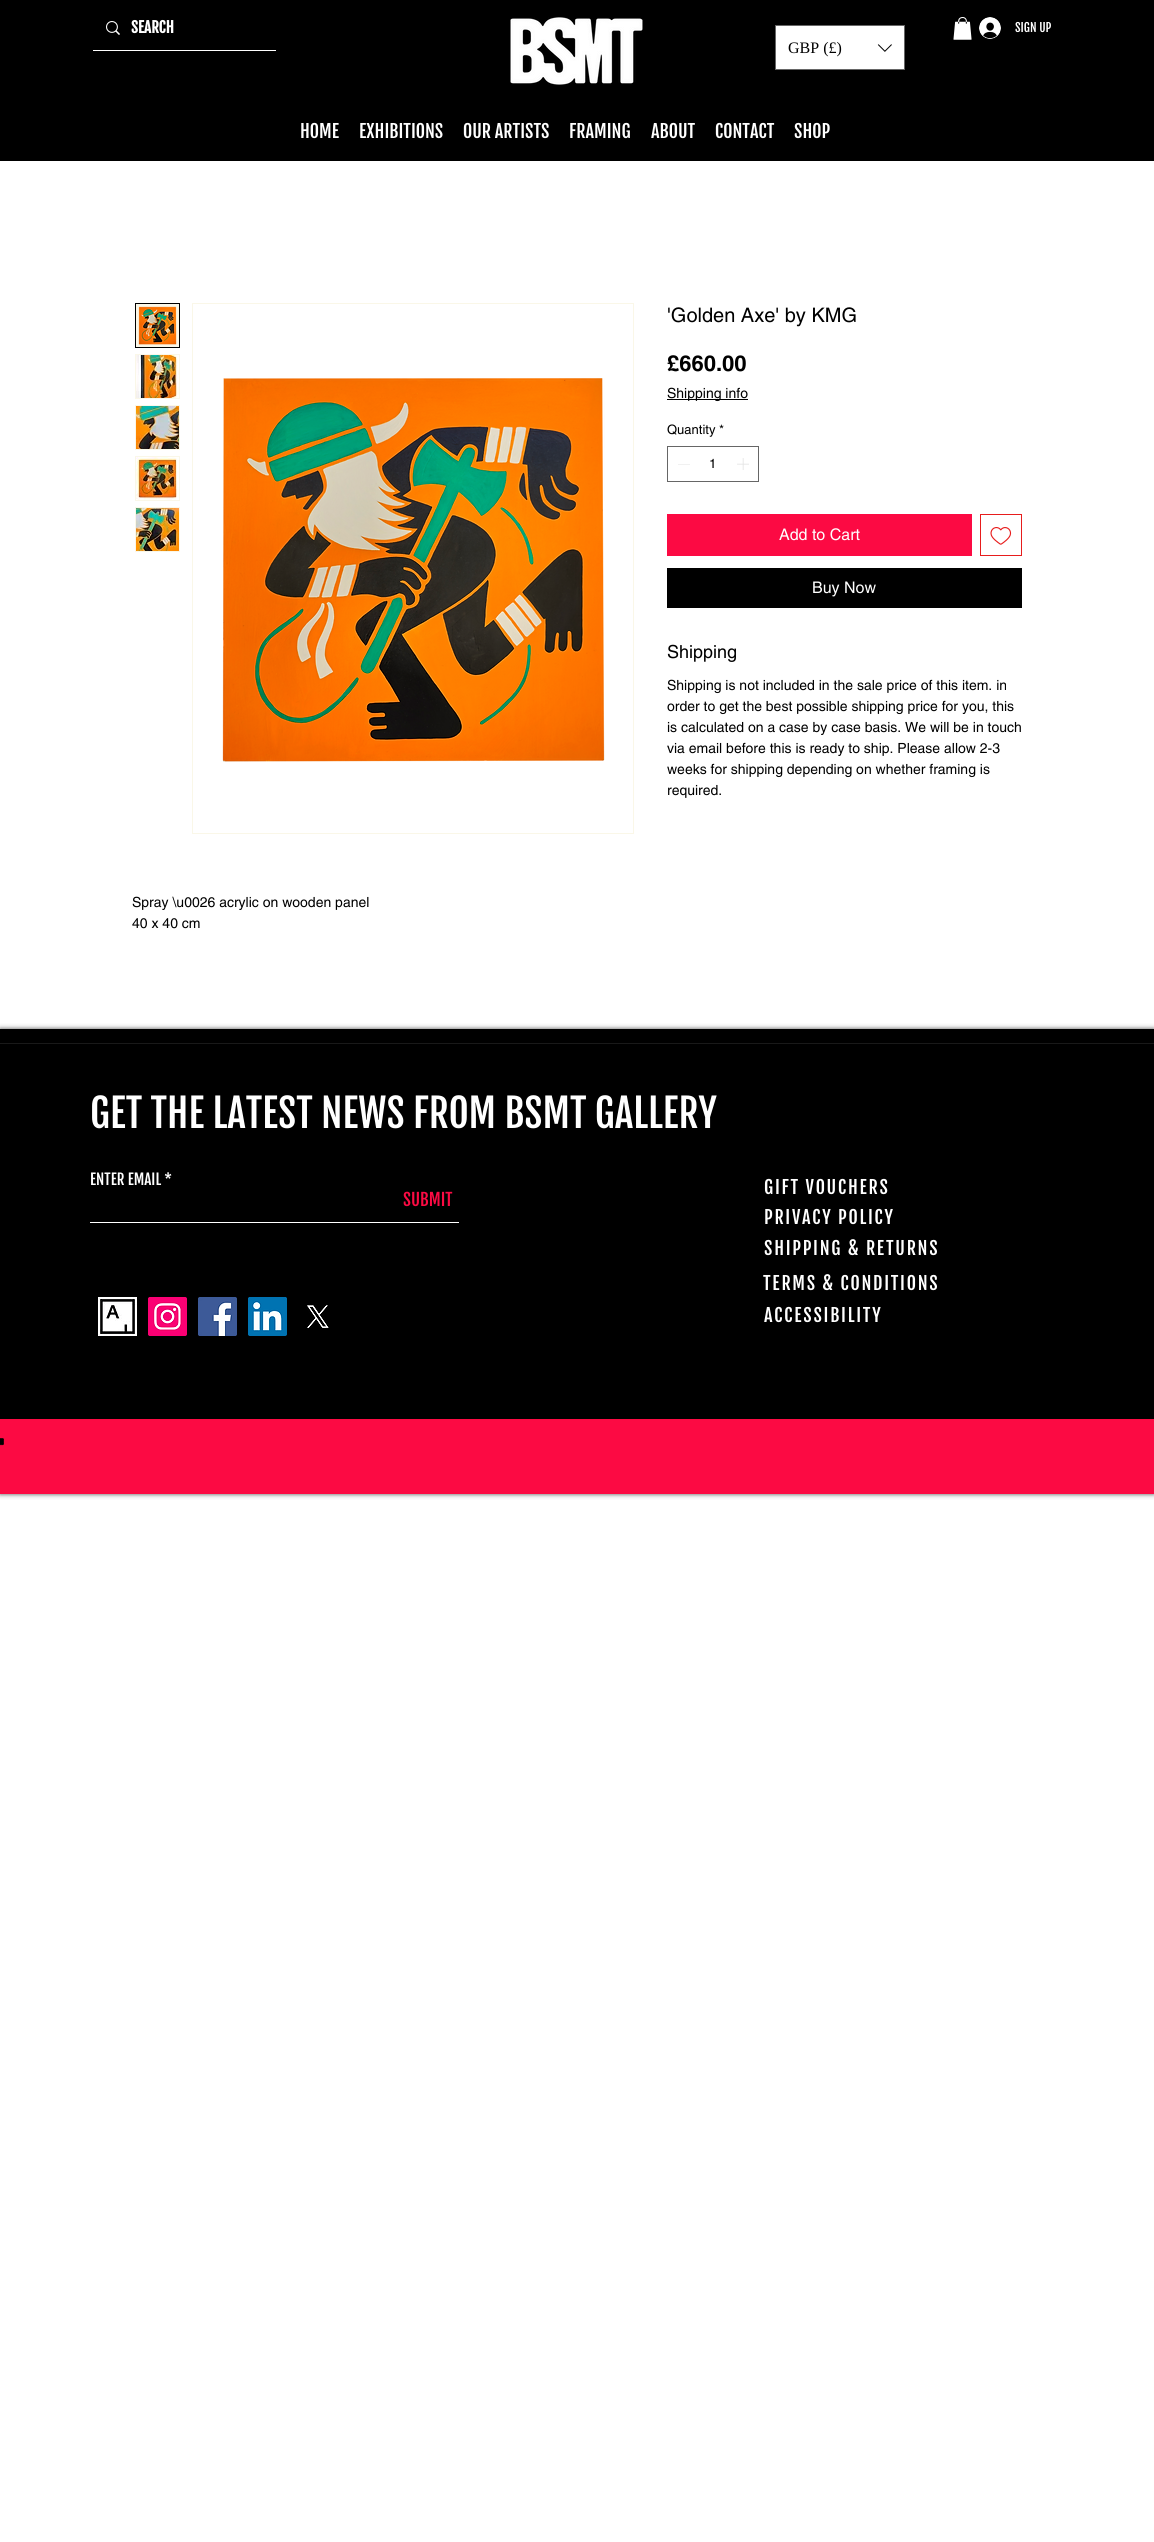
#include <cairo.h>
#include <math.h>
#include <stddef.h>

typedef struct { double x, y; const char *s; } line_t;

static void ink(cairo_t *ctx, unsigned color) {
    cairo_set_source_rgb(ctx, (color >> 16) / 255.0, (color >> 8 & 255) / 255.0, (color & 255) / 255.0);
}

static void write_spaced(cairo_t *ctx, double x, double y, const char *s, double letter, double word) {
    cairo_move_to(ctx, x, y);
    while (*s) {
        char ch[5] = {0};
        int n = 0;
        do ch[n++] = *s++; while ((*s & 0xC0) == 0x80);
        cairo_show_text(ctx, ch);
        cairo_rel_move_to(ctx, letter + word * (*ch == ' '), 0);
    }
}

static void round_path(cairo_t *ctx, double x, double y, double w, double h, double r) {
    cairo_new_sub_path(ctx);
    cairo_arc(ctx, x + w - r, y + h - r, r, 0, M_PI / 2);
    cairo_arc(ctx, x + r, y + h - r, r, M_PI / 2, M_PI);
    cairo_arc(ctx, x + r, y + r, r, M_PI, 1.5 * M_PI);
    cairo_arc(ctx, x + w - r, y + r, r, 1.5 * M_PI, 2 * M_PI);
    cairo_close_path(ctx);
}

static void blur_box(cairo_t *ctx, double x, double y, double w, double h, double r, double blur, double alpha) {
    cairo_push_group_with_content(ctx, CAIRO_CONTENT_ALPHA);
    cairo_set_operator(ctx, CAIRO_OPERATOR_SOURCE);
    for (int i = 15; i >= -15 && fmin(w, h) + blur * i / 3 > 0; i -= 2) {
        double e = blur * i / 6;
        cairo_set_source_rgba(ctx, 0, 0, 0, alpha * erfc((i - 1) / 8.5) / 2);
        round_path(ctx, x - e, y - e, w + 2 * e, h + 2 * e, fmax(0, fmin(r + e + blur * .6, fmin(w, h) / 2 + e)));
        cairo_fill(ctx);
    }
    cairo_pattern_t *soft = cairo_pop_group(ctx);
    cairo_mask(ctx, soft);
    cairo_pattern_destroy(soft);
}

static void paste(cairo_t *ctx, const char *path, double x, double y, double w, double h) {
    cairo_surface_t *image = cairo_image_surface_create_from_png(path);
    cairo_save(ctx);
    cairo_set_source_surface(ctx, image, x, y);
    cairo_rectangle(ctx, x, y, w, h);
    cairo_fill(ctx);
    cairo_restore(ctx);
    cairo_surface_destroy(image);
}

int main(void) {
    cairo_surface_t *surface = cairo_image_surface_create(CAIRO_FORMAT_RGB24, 1154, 2542);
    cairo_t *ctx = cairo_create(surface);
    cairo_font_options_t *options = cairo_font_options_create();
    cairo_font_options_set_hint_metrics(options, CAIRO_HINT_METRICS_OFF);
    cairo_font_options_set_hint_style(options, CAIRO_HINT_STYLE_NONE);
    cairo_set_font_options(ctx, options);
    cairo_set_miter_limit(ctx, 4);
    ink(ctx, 0xFFFFFF);
    cairo_paint(ctx);
    ink(ctx, 0x000000);
    cairo_rectangle(ctx, 0, 0, 1154, 161);
    cairo_fill(ctx);
    paste(ctx, "media/1.png", 510, 17, 133, 68);
    ink(ctx, 0xFFFFFF);
    cairo_rectangle(ctx, 93, 50, 183, 1);
    cairo_fill(ctx);
    paste(ctx, "media/2.png", 106, 21, 14, 14);
    cairo_select_font_face(ctx, "Fjalla One", CAIRO_FONT_SLANT_NORMAL, CAIRO_FONT_WEIGHT_BOLD);
    cairo_set_font_size(ctx, 15);
    cairo_move_to(ctx, 131, 33);
    cairo_show_text(ctx, "SEARCH");
    paste(ctx, "media/3.png", 953, 17, 19, 23);
    paste(ctx, "media/4.png", 979, 17, 22, 22);
    cairo_select_font_face(ctx, "Fjalla One", CAIRO_FONT_SLANT_NORMAL, CAIRO_FONT_WEIGHT_NORMAL);
    cairo_set_font_size(ctx, 12);
    cairo_move_to(ctx, 1015, 32);
    cairo_show_text(ctx, "SIGN UP");
    cairo_set_font_size(ctx, 18);
    {
        static const line_t items[] = {
            {300, 138, "HOME"},
            {359, 138, "EXHIBITIONS"},
            {463, 138, "OUR ARTISTS"},
            {569, 138, "FRAMING"},
            {651, 138, "ABOUT"},
            {715, 138, "CONTACT"},
            {794, 138, "SHOP"},
        };
        for (size_t i = 0; i < sizeof items / sizeof *items; i++) {
            cairo_move_to(ctx, items[i].x, items[i].y);
            cairo_show_text(ctx, items[i].s);
        }
    }
    cairo_rectangle(ctx, 775.5, 25.5, 129, 44);
    cairo_fill_preserve(ctx);
    ink(ctx, 0x666666);
    cairo_set_line_width(ctx, 1);
    cairo_stroke(ctx);
    cairo_select_font_face(ctx, "Liberation Serif", CAIRO_FONT_SLANT_NORMAL, CAIRO_FONT_WEIGHT_NORMAL);
    cairo_set_font_size(ctx, 16);
    ink(ctx, 0x000000);
    cairo_move_to(ctx, 788, 53);
    cairo_show_text(ctx, "GBP (£)");
    paste(ctx, "media/5.png", 877, 44, 15, 8);
    cairo_select_font_face(ctx, "helvetica", CAIRO_FONT_SLANT_NORMAL, CAIRO_FONT_WEIGHT_NORMAL);
    cairo_set_font_size(ctx, 20);
    cairo_move_to(ctx, 667, 322);
    cairo_show_text(ctx, "'Golden Axe' by KMG");
    cairo_select_font_face(ctx, "helvetica", CAIRO_FONT_SLANT_NORMAL, CAIRO_FONT_WEIGHT_BOLD);
    cairo_set_font_size(ctx, 22);
    cairo_move_to(ctx, 667, 371);
    cairo_show_text(ctx, "£660.00");
    cairo_rectangle(ctx, 667, 399, 81, 1);
    cairo_fill(ctx);
    cairo_select_font_face(ctx, "helvetica", CAIRO_FONT_SLANT_NORMAL, CAIRO_FONT_WEIGHT_NORMAL);
    cairo_set_font_size(ctx, 14);
    cairo_move_to(ctx, 667, 398);
    cairo_show_text(ctx, "Shipping info");
    cairo_set_font_size(ctx, 13);
    cairo_move_to(ctx, 667, 434);
    cairo_show_text(ctx, "Quantity");
    cairo_move_to(ctx, 719, 434);
    cairo_show_text(ctx, "*");
    cairo_rectangle(ctx, 667.5, 446.5, 91, 35);
    ink(ctx, 0x666666);
    cairo_stroke(ctx);
    ink(ctx, 0xE3E3E3);
    cairo_set_fill_rule(ctx, CAIRO_FILL_RULE_EVEN_ODD);
    cairo_new_path(ctx);
    cairo_move_to(ctx, 690, 464);
    cairo_line_to(ctx, 690, 464.5);
    cairo_line_to(ctx, 678, 464.5);
    cairo_line_to(ctx, 678, 464);
    cairo_close_path(ctx);
    cairo_fill(ctx);
    ink(ctx, 0x000000);
    cairo_move_to(ctx, 709, 468);
    cairo_show_text(ctx, "1");
    paste(ctx, "media/6.png", 737, 458, 12, 12);
    ink(ctx, 0xFC0A43);
    cairo_rectangle(ctx, 667, 514, 305, 42);
    cairo_fill(ctx);
    cairo_set_font_size(ctx, 16);
    ink(ctx, 0xFFFFFF);
    cairo_move_to(ctx, 779, 540);
    cairo_show_text(ctx, "Add to Cart");
    cairo_rectangle(ctx, 980.5, 514.5, 41, 41);
    ink(ctx, 0xE71D1D);
    cairo_stroke(ctx);
    paste(ctx, "media/7.png", 990, 527, 22, 18);
    ink(ctx, 0x000000);
    cairo_rectangle(ctx, 667, 568, 355, 40);
    cairo_fill(ctx);
    ink(ctx, 0xFFFFFF);
    cairo_move_to(ctx, 812, 593);
    cairo_show_text(ctx, "Buy Now");
    cairo_set_font_size(ctx, 18);
    ink(ctx, 0x000000);
    cairo_move_to(ctx, 667, 658);
    cairo_show_text(ctx, "Shipping");
    cairo_set_font_size(ctx, 14);
    {
        static const line_t items[] = {
            {667, 690, "Shipping is not included in the sale price of this item. in"},
            {667, 711, "order to get the best possible shipping price for you, this"},
            {667, 732, "is calculated on a case by case basis. We will be in touch"},
            {667, 753, "via email before this is ready to ship. Please allow 2-3"},
            {667, 774, "weeks for shipping depending on whether framing is"},
            {667, 795, "required."},
        };
        for (size_t i = 0; i < sizeof items / sizeof *items; i++) {
            cairo_move_to(ctx, items[i].x, items[i].y);
            cairo_show_text(ctx, items[i].s);
        }
    }
    ink(ctx, 0xFAF7E8);
    cairo_rectangle(ctx, 135.5, 303.5, 44, 44);
    cairo_fill_preserve(ctx);
    ink(ctx, 0x000000);
    cairo_stroke(ctx);
    paste(ctx, "media/8.png", 138, 306, 39, 39);
    ink(ctx, 0xFAF7E8);
    cairo_rectangle(ctx, 135, 354, 45, 45);
    cairo_fill(ctx);
    paste(ctx, "media/9.png", 136, 355, 43, 43);
    cairo_rectangle(ctx, 135, 405, 45, 45);
    cairo_fill(ctx);
    paste(ctx, "media/10.png", 136, 406, 43, 43);
    cairo_rectangle(ctx, 135, 456, 45, 45);
    cairo_fill(ctx);
    paste(ctx, "media/11.png", 136, 457, 43, 43);
    cairo_rectangle(ctx, 135, 507, 45, 45);
    cairo_fill(ctx);
    paste(ctx, "media/12.png", 136, 508, 43, 43);
    cairo_rectangle(ctx, 192.5, 303.5, 441, 530);
    cairo_stroke(ctx);
    paste(ctx, "media/13.png", 222, 378, 383, 384);
    ink(ctx, 0x000000);
    cairo_move_to(ctx, 132, 907);
    cairo_show_text(ctx, "Spray \\u0026 acrylic on wooden panel");
    cairo_move_to(ctx, 132, 928);
    cairo_show_text(ctx, "40 x 40 cm");
    ink(ctx, 0x000000);
    blur_box(ctx, 0, 1029, 1154, 465, 0, 2.5, 0.7);
    ink(ctx, 0x000000);
    cairo_rectangle(ctx, 0, 1029, 1154, 390);
    cairo_fill(ctx);
    ink(ctx, 0x191919);
    cairo_rectangle(ctx, 0, 1043, 1154, 1);
    cairo_fill(ctx);
    cairo_select_font_face(ctx, "Fjalla One", CAIRO_FONT_SLANT_NORMAL, CAIRO_FONT_WEIGHT_NORMAL);
    cairo_set_font_size(ctx, 39);
    ink(ctx, 0xFFFFFF);
    cairo_move_to(ctx, 90, 1128);
    cairo_show_text(ctx, "GET THE LATEST NEWS FROM BSMT GALLERY");
    cairo_set_font_size(ctx, 15);
    cairo_move_to(ctx, 90, 1185);
    cairo_show_text(ctx, "ENTER EMAIL *");
    cairo_rectangle(ctx, 90, 1222, 369, 1);
    cairo_fill(ctx);
    cairo_set_font_size(ctx, 17);
    ink(ctx, 0xFC0A43);
    cairo_move_to(ctx, 403, 1206);
    cairo_show_text(ctx, "SUBMIT");
    cairo_set_font_size(ctx, 18);
    ink(ctx, 0xFFFFFF);
    {
        static const line_t items[] = {
            {764, 1194, "GIFT VOUCHERS"},
            {764, 1224, "PRIVACY POLICY"},
            {764, 1255, "SHIPPING & RETURNS"},
            {763, 1290, "TERMS & CONDITIONS"},
        };
        for (size_t i = 0; i < sizeof items / sizeof *items; i++) {
            write_spaced(ctx, items[i].x, items[i].y, items[i].s, 1.75, 0);
        }
    }
    paste(ctx, "media/14.png", 98, 1297, 39, 39);
    paste(ctx, "media/15.png", 148, 1297, 39, 39);
    paste(ctx, "media/16.png", 198, 1297, 39, 39);
    paste(ctx, "media/17.png", 248, 1297, 39, 39);
    paste(ctx, "media/18.png", 307, 1305, 22, 23);
    write_spaced(ctx, 764, 1322, "ACCESSIBILITY", 1.75, 0);
    ink(ctx, 0xFC0A43);
    cairo_rectangle(ctx, 0, 1419, 1154, 75);
    cairo_fill(ctx);
    paste(ctx, "media/19.png", 0, 1438, 4, 8);
    cairo_surface_write_to_png(surface, "image.png");
    cairo_font_options_destroy(options);
    cairo_destroy(ctx);
    cairo_surface_destroy(surface);
    return 0;
}
